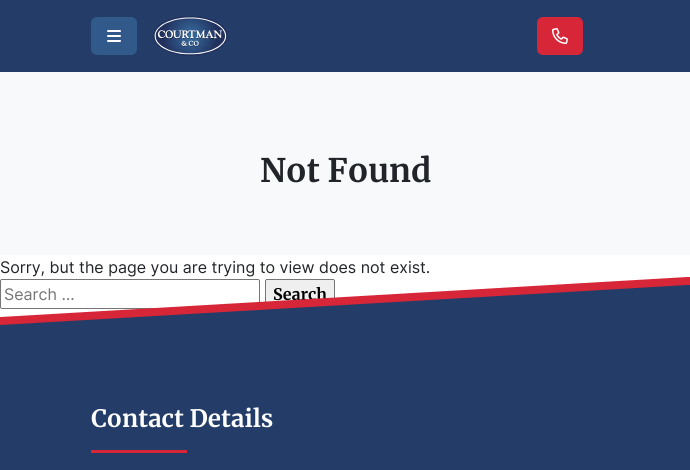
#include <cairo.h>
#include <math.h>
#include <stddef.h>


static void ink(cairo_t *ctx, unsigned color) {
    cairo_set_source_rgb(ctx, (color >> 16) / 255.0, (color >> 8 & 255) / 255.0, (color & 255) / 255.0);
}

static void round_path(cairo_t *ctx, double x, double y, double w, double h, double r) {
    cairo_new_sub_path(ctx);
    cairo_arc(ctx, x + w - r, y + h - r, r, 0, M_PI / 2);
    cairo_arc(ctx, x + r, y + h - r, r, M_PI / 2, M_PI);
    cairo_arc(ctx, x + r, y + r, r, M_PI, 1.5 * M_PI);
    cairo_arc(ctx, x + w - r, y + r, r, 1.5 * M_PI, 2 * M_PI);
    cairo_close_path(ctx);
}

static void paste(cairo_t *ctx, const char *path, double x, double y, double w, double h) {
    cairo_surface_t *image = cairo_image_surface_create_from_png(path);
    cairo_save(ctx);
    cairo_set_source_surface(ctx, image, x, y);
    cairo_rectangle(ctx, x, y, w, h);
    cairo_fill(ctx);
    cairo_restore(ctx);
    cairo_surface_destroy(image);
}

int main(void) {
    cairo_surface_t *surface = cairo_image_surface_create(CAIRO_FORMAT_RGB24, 690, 470);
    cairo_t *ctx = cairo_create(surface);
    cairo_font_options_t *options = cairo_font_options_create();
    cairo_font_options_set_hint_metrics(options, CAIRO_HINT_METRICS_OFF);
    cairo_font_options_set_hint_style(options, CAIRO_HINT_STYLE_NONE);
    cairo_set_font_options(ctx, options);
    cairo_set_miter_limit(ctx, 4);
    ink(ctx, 0xFFFFFF);
    cairo_paint(ctx);
    ink(ctx, 0x233C68);
    cairo_rectangle(ctx, 0, 0, 690, 72);
    cairo_fill(ctx);
    ink(ctx, 0x31598A);
    round_path(ctx, 91.5, 17.5, 45, 37, 5.5);
    cairo_fill_preserve(ctx);
    cairo_set_line_width(ctx, 1);
    cairo_stroke(ctx);
    paste(ctx, "media/1.png", 107, 30, 14, 12);
    paste(ctx, "media/2.png", 153, 16, 75, 40);
    ink(ctx, 0xD72638);
    round_path(ctx, 537.5, 17.5, 45, 37, 5.5);
    cairo_fill_preserve(ctx);
    cairo_stroke(ctx);
    paste(ctx, "media/3.png", 552, 28, 16, 16);
    ink(ctx, 0xF8F9FA);
    cairo_rectangle(ctx, 0, 72, 690, 183);
    cairo_fill(ctx);
    cairo_select_font_face(ctx, "Merriweather", CAIRO_FONT_SLANT_NORMAL, CAIRO_FONT_WEIGHT_BOLD);
    cairo_set_font_size(ctx, 32.5);
    ink(ctx, 0x212529);
    cairo_move_to(ctx, 260, 182);
    cairo_show_text(ctx, "Not Found");
    cairo_select_font_face(ctx, "Inter", CAIRO_FONT_SLANT_NORMAL, CAIRO_FONT_WEIGHT_NORMAL);
    cairo_set_font_size(ctx, 16);
    cairo_move_to(ctx, 0, 273);
    cairo_show_text(ctx, "Sorry, but the page you are trying to view does not exist.");
    round_path(ctx, 0.5, 279.5, 259, 29, 1.5);
    ink(ctx, 0x767676);
    cairo_stroke(ctx);
    ink(ctx, 0x757575);
    cairo_move_to(ctx, 4, 300);
    cairo_show_text(ctx, "Search …");
    ink(ctx, 0xEFEFEF);
    round_path(ctx, 265.5, 279.5, 69, 29, 1.5);
    cairo_fill_preserve(ctx);
    ink(ctx, 0x767676);
    cairo_stroke(ctx);
    cairo_select_font_face(ctx, "Merriweather", CAIRO_FONT_SLANT_NORMAL, CAIRO_FONT_WEIGHT_BOLD);
    ink(ctx, 0x000000);
    cairo_move_to(ctx, 273, 300);
    cairo_show_text(ctx, "Search");
    ink(ctx, 0x233C68);
    cairo_rectangle(ctx, 0, 365, 690, 105);
    cairo_fill(ctx);
    ink(ctx, 0xD72638);
    cairo_new_path(ctx);
    cairo_move_to(ctx, 0, 317);
    cairo_line_to(ctx, 0, 357);
    cairo_line_to(ctx, 690, 357);
    cairo_line_to(ctx, 690, 277);
    cairo_line_to(ctx, 687, 277);
    cairo_close_path(ctx);
    cairo_fill(ctx);
    ink(ctx, 0x233C68);
    cairo_new_path(ctx);
    cairo_move_to(ctx, 0, 325);
    cairo_line_to(ctx, 0, 365);
    cairo_line_to(ctx, 690, 365);
    cairo_line_to(ctx, 690, 285);
    cairo_line_to(ctx, 687, 285);
    cairo_close_path(ctx);
    cairo_fill(ctx);
    cairo_set_font_size(ctx, 24);
    ink(ctx, 0xFFFFFF);
    cairo_move_to(ctx, 91, 427);
    cairo_show_text(ctx, "Contact Details");
    ink(ctx, 0xD72638);
    cairo_rectangle(ctx, 91, 450, 96, 3);
    cairo_fill(ctx);
    cairo_surface_write_to_png(surface, "image.png");
    cairo_font_options_destroy(options);
    cairo_destroy(ctx);
    cairo_surface_destroy(surface);
    return 0;
}
